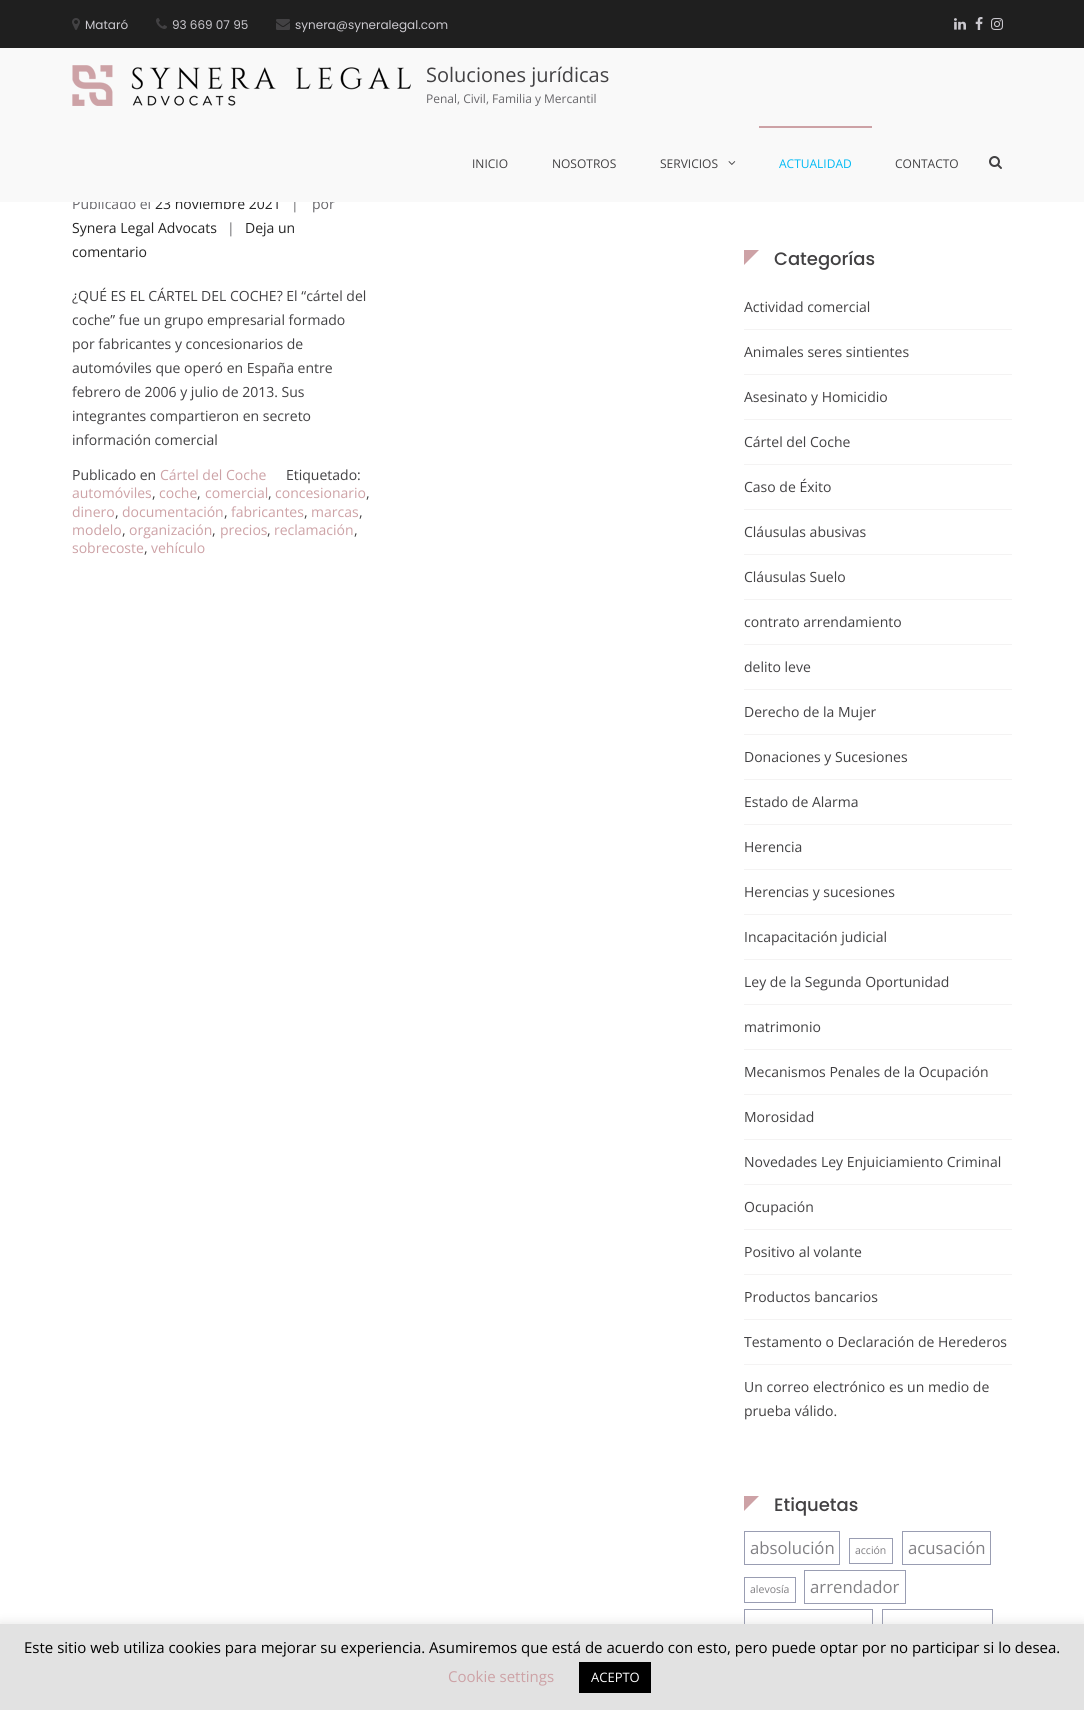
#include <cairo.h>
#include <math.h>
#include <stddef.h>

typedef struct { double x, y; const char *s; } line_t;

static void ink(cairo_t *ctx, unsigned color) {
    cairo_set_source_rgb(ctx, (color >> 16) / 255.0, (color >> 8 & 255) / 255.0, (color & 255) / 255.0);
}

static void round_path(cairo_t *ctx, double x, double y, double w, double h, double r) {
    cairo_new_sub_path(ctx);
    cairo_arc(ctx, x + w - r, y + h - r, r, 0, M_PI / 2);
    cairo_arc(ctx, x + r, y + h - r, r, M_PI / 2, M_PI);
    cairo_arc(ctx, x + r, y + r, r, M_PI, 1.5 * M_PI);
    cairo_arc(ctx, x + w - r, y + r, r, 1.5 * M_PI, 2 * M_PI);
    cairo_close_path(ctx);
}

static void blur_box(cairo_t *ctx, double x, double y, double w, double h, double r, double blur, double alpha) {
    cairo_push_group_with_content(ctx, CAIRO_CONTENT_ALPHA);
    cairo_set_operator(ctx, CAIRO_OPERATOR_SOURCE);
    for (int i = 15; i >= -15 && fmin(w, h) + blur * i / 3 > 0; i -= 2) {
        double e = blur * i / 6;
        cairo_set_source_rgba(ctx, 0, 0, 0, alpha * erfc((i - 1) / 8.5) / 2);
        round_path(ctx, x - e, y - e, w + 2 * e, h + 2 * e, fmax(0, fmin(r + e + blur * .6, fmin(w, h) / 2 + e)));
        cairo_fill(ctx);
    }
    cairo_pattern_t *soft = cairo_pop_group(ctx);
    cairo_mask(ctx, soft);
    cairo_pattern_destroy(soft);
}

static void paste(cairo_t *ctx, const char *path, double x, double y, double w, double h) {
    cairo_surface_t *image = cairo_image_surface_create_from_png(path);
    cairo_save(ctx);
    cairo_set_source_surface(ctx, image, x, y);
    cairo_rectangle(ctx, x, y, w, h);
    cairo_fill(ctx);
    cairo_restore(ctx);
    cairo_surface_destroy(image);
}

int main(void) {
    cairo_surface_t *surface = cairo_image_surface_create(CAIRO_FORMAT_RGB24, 1084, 1710);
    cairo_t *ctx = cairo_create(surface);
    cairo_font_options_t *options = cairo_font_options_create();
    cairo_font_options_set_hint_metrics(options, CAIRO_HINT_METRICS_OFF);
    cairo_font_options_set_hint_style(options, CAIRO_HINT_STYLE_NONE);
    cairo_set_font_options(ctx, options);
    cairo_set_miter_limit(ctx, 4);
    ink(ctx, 0xFFFFFF);
    cairo_paint(ctx);
    ink(ctx, 0x1F1F1F);
    cairo_rectangle(ctx, 0, 0, 1084, 48);
    cairo_fill(ctx);
    paste(ctx, "media/1.png", 72, 18, 8, 12);
    cairo_select_font_face(ctx, "Poppins", CAIRO_FONT_SLANT_NORMAL, CAIRO_FONT_WEIGHT_NORMAL);
    cairo_set_font_size(ctx, 12);
    ink(ctx, 0xCBC9CF);
    cairo_move_to(ctx, 85, 29);
    cairo_show_text(ctx, "Mataró");
    paste(ctx, "media/2.png", 156, 18, 11, 11);
    cairo_move_to(ctx, 172, 29);
    cairo_show_text(ctx, "93 669 07 95");
    paste(ctx, "media/3.png", 276, 19, 14, 11);
    cairo_move_to(ctx, 295, 29);
    cairo_show_text(ctx, "synera@syneralegal.com");
    paste(ctx, "media/4.png", 954, 18, 12, 12);
    paste(ctx, "media/5.png", 975, 17, 8, 13);
    paste(ctx, "media/6.png", 991, 18, 12, 12);
    cairo_select_font_face(ctx, "Open Sans", CAIRO_FONT_SLANT_NORMAL, CAIRO_FONT_WEIGHT_NORMAL);
    cairo_set_font_size(ctx, 14);
    ink(ctx, 0x67666A);
    cairo_move_to(ctx, 72, 209);
    cairo_show_text(ctx, "Publicado el");
    ink(ctx, 0x252525);
    cairo_move_to(ctx, 155, 209);
    cairo_show_text(ctx, "23 noviembre 2021");
    ink(ctx, 0x67666A);
    cairo_move_to(ctx, 291, 209);
    cairo_show_text(ctx, "|");
    cairo_move_to(ctx, 312, 209);
    cairo_show_text(ctx, "por");
    ink(ctx, 0xF9F9F9);
    cairo_rectangle(ctx, 0, 48, 1084, 154);
    cairo_fill(ctx);
    paste(ctx, "media/7.png", 72, 65, 339, 41);
    cairo_set_font_size(ctx, 20);
    ink(ctx, 0x424143);
    cairo_move_to(ctx, 426, 82);
    cairo_show_text(ctx, "Soluciones jurídicas");
    cairo_set_font_size(ctx, 12);
    ink(ctx, 0x67666A);
    cairo_move_to(ctx, 426, 103);
    cairo_show_text(ctx, "Penal, Civil, Familia y Mercantil");
    ink(ctx, 0x424143);
    {
        static const line_t items[] = {
            {472, 168, "INICIO"},
            {552, 168, "NOSOTROS"},
            {660, 168, "SERVICIOS"},
        };
        for (size_t i = 0; i < sizeof items / sizeof *items; i++) {
            cairo_move_to(ctx, items[i].x, items[i].y);
            cairo_show_text(ctx, items[i].s);
        }
    }
    paste(ctx, "media/8.png", 728, 161, 8, 4);
    ink(ctx, 0xCDA2A6);
    cairo_rectangle(ctx, 759, 126, 113, 2);
    cairo_fill(ctx);
    ink(ctx, 0x00BAF4);
    cairo_move_to(ctx, 779, 168);
    cairo_show_text(ctx, "ACTUALIDAD");
    ink(ctx, 0x424143);
    cairo_move_to(ctx, 895, 168);
    cairo_show_text(ctx, "CONTACTO");
    paste(ctx, "media/9.png", 989, 156, 13, 13);
    cairo_set_font_size(ctx, 14);
    ink(ctx, 0x252525);
    cairo_move_to(ctx, 72, 233);
    cairo_show_text(ctx, "Synera Legal Advocats");
    ink(ctx, 0x67666A);
    cairo_move_to(ctx, 227, 233);
    cairo_show_text(ctx, "|");
    ink(ctx, 0x252525);
    cairo_move_to(ctx, 245, 233);
    cairo_show_text(ctx, "Deja un");
    cairo_move_to(ctx, 72, 257);
    cairo_show_text(ctx, "comentario");
    ink(ctx, 0x424143);
    {
        static const line_t items[] = {
            {72, 301, "¿QUÉ ES EL CÁRTEL DEL COCHE? El “cártel del"},
            {72, 325, "coche” fue un grupo empresarial formado"},
            {72, 349, "por fabricantes y concesionarios de"},
            {72, 373, "automóviles que operó en España entre"},
            {72, 397, "febrero de 2006 y julio de 2013. Sus"},
            {72, 421, "integrantes compartieron en secreto"},
            {72, 445, "información comercial"},
            {72, 480, "Publicado en"},
        };
        for (size_t i = 0; i < sizeof items / sizeof *items; i++) {
            cairo_move_to(ctx, items[i].x, items[i].y);
            cairo_show_text(ctx, items[i].s);
        }
    }
    ink(ctx, 0xCDA2A6);
    cairo_move_to(ctx, 160, 480);
    cairo_show_text(ctx, "Cártel del Coche");
    ink(ctx, 0x424143);
    cairo_move_to(ctx, 286, 480);
    cairo_show_text(ctx, "Etiquetado:");
    ink(ctx, 0xCDA2A6);
    cairo_move_to(ctx, 72, 498);
    cairo_show_text(ctx, "automóviles");
    ink(ctx, 0x424143);
    cairo_move_to(ctx, 152, 498);
    cairo_show_text(ctx, ",");
    ink(ctx, 0xCDA2A6);
    cairo_move_to(ctx, 159, 498);
    cairo_show_text(ctx, "coche");
    ink(ctx, 0x424143);
    cairo_move_to(ctx, 197, 498);
    cairo_show_text(ctx, ",");
    ink(ctx, 0xCDA2A6);
    cairo_move_to(ctx, 205, 498);
    cairo_show_text(ctx, "comercial");
    ink(ctx, 0x424143);
    cairo_move_to(ctx, 268, 498);
    cairo_show_text(ctx, ",");
    ink(ctx, 0xCDA2A6);
    cairo_move_to(ctx, 275, 498);
    cairo_show_text(ctx, "concesionario");
    ink(ctx, 0x424143);
    cairo_move_to(ctx, 366, 498);
    cairo_show_text(ctx, ",");
    ink(ctx, 0xCDA2A6);
    cairo_move_to(ctx, 72, 517);
    cairo_show_text(ctx, "dinero");
    ink(ctx, 0x424143);
    cairo_move_to(ctx, 115, 517);
    cairo_show_text(ctx, ",");
    ink(ctx, 0xCDA2A6);
    cairo_move_to(ctx, 122, 517);
    cairo_show_text(ctx, "documentación");
    ink(ctx, 0x424143);
    cairo_move_to(ctx, 224, 517);
    cairo_show_text(ctx, ",");
    ink(ctx, 0xCDA2A6);
    cairo_move_to(ctx, 231, 517);
    cairo_show_text(ctx, "fabricantes");
    ink(ctx, 0x424143);
    cairo_move_to(ctx, 304, 517);
    cairo_show_text(ctx, ",");
    ink(ctx, 0xCDA2A6);
    cairo_move_to(ctx, 311, 517);
    cairo_show_text(ctx, "marcas");
    ink(ctx, 0x424143);
    cairo_move_to(ctx, 359, 517);
    cairo_show_text(ctx, ",");
    ink(ctx, 0xCDA2A6);
    cairo_move_to(ctx, 72, 535);
    cairo_show_text(ctx, "modelo");
    ink(ctx, 0x424143);
    cairo_move_to(ctx, 122, 535);
    cairo_show_text(ctx, ",");
    ink(ctx, 0xCDA2A6);
    cairo_move_to(ctx, 129, 535);
    cairo_show_text(ctx, "organización");
    ink(ctx, 0x424143);
    cairo_move_to(ctx, 212, 535);
    cairo_show_text(ctx, ",");
    ink(ctx, 0xCDA2A6);
    cairo_move_to(ctx, 220, 535);
    cairo_show_text(ctx, "precios");
    ink(ctx, 0x424143);
    cairo_move_to(ctx, 267, 535);
    cairo_show_text(ctx, ",");
    ink(ctx, 0xCDA2A6);
    cairo_move_to(ctx, 274, 535);
    cairo_show_text(ctx, "reclamación");
    ink(ctx, 0x424143);
    cairo_move_to(ctx, 354, 535);
    cairo_show_text(ctx, ",");
    ink(ctx, 0xCDA2A6);
    cairo_move_to(ctx, 72, 553);
    cairo_show_text(ctx, "sobrecoste");
    ink(ctx, 0x424143);
    cairo_move_to(ctx, 144, 553);
    cairo_show_text(ctx, ",");
    ink(ctx, 0xCDA2A6);
    cairo_move_to(ctx, 151, 553);
    cairo_show_text(ctx, "vehículo");
    cairo_new_path(ctx);
    cairo_move_to(ctx, 744, 250);
    cairo_line_to(ctx, 759, 250);
    cairo_line_to(ctx, 744, 265);
    cairo_close_path(ctx);
    cairo_fill(ctx);
    cairo_select_font_face(ctx, "Poppins Medium", CAIRO_FONT_SLANT_NORMAL, CAIRO_FONT_WEIGHT_NORMAL);
    cairo_set_font_size(ctx, 18);
    ink(ctx, 0x424143);
    cairo_move_to(ctx, 774, 265);
    cairo_show_text(ctx, "Categorías");
    ink(ctx, 0xF4F3F3);
    cairo_rectangle(ctx, 744, 329, 268, 1);
    cairo_fill(ctx);
    cairo_select_font_face(ctx, "Open Sans", CAIRO_FONT_SLANT_NORMAL, CAIRO_FONT_WEIGHT_NORMAL);
    cairo_set_font_size(ctx, 14);
    ink(ctx, 0x424143);
    cairo_move_to(ctx, 744, 312);
    cairo_show_text(ctx, "Actividad comercial");
    ink(ctx, 0xF4F3F3);
    cairo_rectangle(ctx, 744, 374, 268, 1);
    cairo_fill(ctx);
    ink(ctx, 0x424143);
    cairo_move_to(ctx, 744, 357);
    cairo_show_text(ctx, "Animales seres sintientes");
    ink(ctx, 0xF4F3F3);
    cairo_rectangle(ctx, 744, 419, 268, 1);
    cairo_fill(ctx);
    ink(ctx, 0x424143);
    cairo_move_to(ctx, 744, 402);
    cairo_show_text(ctx, "Asesinato y Homicidio");
    ink(ctx, 0xF4F3F3);
    cairo_rectangle(ctx, 744, 464, 268, 1);
    cairo_fill(ctx);
    ink(ctx, 0x424143);
    cairo_move_to(ctx, 744, 447);
    cairo_show_text(ctx, "Cártel del Coche");
    ink(ctx, 0xF4F3F3);
    cairo_rectangle(ctx, 744, 509, 268, 1);
    cairo_fill(ctx);
    ink(ctx, 0x424143);
    cairo_move_to(ctx, 744, 492);
    cairo_show_text(ctx, "Caso de Éxito");
    ink(ctx, 0xF4F3F3);
    cairo_rectangle(ctx, 744, 554, 268, 1);
    cairo_fill(ctx);
    ink(ctx, 0x424143);
    cairo_move_to(ctx, 744, 537);
    cairo_show_text(ctx, "Cláusulas abusivas");
    ink(ctx, 0xF4F3F3);
    cairo_rectangle(ctx, 744, 599, 268, 1);
    cairo_fill(ctx);
    ink(ctx, 0x424143);
    cairo_move_to(ctx, 744, 582);
    cairo_show_text(ctx, "Cláusulas Suelo");
    ink(ctx, 0xF4F3F3);
    cairo_rectangle(ctx, 744, 644, 268, 1);
    cairo_fill(ctx);
    ink(ctx, 0x424143);
    cairo_move_to(ctx, 744, 627);
    cairo_show_text(ctx, "contrato arrendamiento");
    ink(ctx, 0xF4F3F3);
    cairo_rectangle(ctx, 744, 689, 268, 1);
    cairo_fill(ctx);
    ink(ctx, 0x424143);
    cairo_move_to(ctx, 744, 672);
    cairo_show_text(ctx, "delito leve");
    ink(ctx, 0xF4F3F3);
    cairo_rectangle(ctx, 744, 734, 268, 1);
    cairo_fill(ctx);
    ink(ctx, 0x424143);
    cairo_move_to(ctx, 744, 717);
    cairo_show_text(ctx, "Derecho de la Mujer");
    ink(ctx, 0xF4F3F3);
    cairo_rectangle(ctx, 744, 779, 268, 1);
    cairo_fill(ctx);
    ink(ctx, 0x424143);
    cairo_move_to(ctx, 744, 762);
    cairo_show_text(ctx, "Donaciones y Sucesiones");
    ink(ctx, 0xF4F3F3);
    cairo_rectangle(ctx, 744, 824, 268, 1);
    cairo_fill(ctx);
    ink(ctx, 0x424143);
    cairo_move_to(ctx, 744, 807);
    cairo_show_text(ctx, "Estado de Alarma");
    ink(ctx, 0xF4F3F3);
    cairo_rectangle(ctx, 744, 869, 268, 1);
    cairo_fill(ctx);
    ink(ctx, 0x424143);
    cairo_move_to(ctx, 744, 852);
    cairo_show_text(ctx, "Herencia");
    ink(ctx, 0xF4F3F3);
    cairo_rectangle(ctx, 744, 914, 268, 1);
    cairo_fill(ctx);
    ink(ctx, 0x424143);
    cairo_move_to(ctx, 744, 897);
    cairo_show_text(ctx, "Herencias y sucesiones");
    ink(ctx, 0xF4F3F3);
    cairo_rectangle(ctx, 744, 959, 268, 1);
    cairo_fill(ctx);
    ink(ctx, 0x424143);
    cairo_move_to(ctx, 744, 942);
    cairo_show_text(ctx, "Incapacitación judicial");
    ink(ctx, 0xF4F3F3);
    cairo_rectangle(ctx, 744, 1004, 268, 1);
    cairo_fill(ctx);
    ink(ctx, 0x424143);
    cairo_move_to(ctx, 744, 987);
    cairo_show_text(ctx, "Ley de la Segunda Oportunidad");
    ink(ctx, 0xF4F3F3);
    cairo_rectangle(ctx, 744, 1049, 268, 1);
    cairo_fill(ctx);
    ink(ctx, 0x424143);
    cairo_move_to(ctx, 744, 1032);
    cairo_show_text(ctx, "matrimonio");
    ink(ctx, 0xF4F3F3);
    cairo_rectangle(ctx, 744, 1094, 268, 1);
    cairo_fill(ctx);
    ink(ctx, 0x424143);
    cairo_move_to(ctx, 744, 1077);
    cairo_show_text(ctx, "Mecanismos Penales de la Ocupación");
    ink(ctx, 0xF4F3F3);
    cairo_rectangle(ctx, 744, 1139, 268, 1);
    cairo_fill(ctx);
    ink(ctx, 0x424143);
    cairo_move_to(ctx, 744, 1122);
    cairo_show_text(ctx, "Morosidad");
    ink(ctx, 0xF4F3F3);
    cairo_rectangle(ctx, 744, 1184, 268, 1);
    cairo_fill(ctx);
    ink(ctx, 0x424143);
    cairo_move_to(ctx, 744, 1167);
    cairo_show_text(ctx, "Novedades Ley Enjuiciamiento Criminal");
    ink(ctx, 0xF4F3F3);
    cairo_rectangle(ctx, 744, 1229, 268, 1);
    cairo_fill(ctx);
    ink(ctx, 0x424143);
    cairo_move_to(ctx, 744, 1212);
    cairo_show_text(ctx, "Ocupación");
    ink(ctx, 0xF4F3F3);
    cairo_rectangle(ctx, 744, 1274, 268, 1);
    cairo_fill(ctx);
    ink(ctx, 0x424143);
    cairo_move_to(ctx, 744, 1257);
    cairo_show_text(ctx, "Positivo al volante");
    ink(ctx, 0xF4F3F3);
    cairo_rectangle(ctx, 744, 1319, 268, 1);
    cairo_fill(ctx);
    ink(ctx, 0x424143);
    cairo_move_to(ctx, 744, 1302);
    cairo_show_text(ctx, "Productos bancarios");
    ink(ctx, 0xF4F3F3);
    cairo_rectangle(ctx, 744, 1364, 268, 1);
    cairo_fill(ctx);
    ink(ctx, 0x424143);
    {
        static const line_t items[] = {
            {744, 1347, "Testamento o Declaración de Herederos"},
            {744, 1392, "Un correo electrónico es un medio de"},
            {744, 1416, "prueba válido."},
        };
        for (size_t i = 0; i < sizeof items / sizeof *items; i++) {
            cairo_move_to(ctx, items[i].x, items[i].y);
            cairo_show_text(ctx, items[i].s);
        }
    }
    ink(ctx, 0xCDA2A6);
    cairo_new_path(ctx);
    cairo_move_to(ctx, 744, 1496);
    cairo_line_to(ctx, 759, 1496);
    cairo_line_to(ctx, 744, 1511);
    cairo_close_path(ctx);
    cairo_fill(ctx);
    cairo_select_font_face(ctx, "Poppins Medium", CAIRO_FONT_SLANT_NORMAL, CAIRO_FONT_WEIGHT_NORMAL);
    cairo_set_font_size(ctx, 18);
    ink(ctx, 0x424143);
    cairo_move_to(ctx, 774, 1511);
    cairo_show_text(ctx, "Etiquetas");
    cairo_rectangle(ctx, 744.5, 1531.5, 95, 33);
    ink(ctx, 0x999DB2);
    cairo_set_line_width(ctx, 1);
    cairo_stroke(ctx);
    cairo_select_font_face(ctx, "Open Sans", CAIRO_FONT_SLANT_NORMAL, CAIRO_FONT_WEIGHT_NORMAL);
    cairo_set_font_size(ctx, 16.75);
    ink(ctx, 0x807F83);
    cairo_move_to(ctx, 750, 1554);
    cairo_show_text(ctx, "absolución");
    cairo_rectangle(ctx, 849.5, 1538.5, 43, 25);
    ink(ctx, 0x999DB2);
    cairo_stroke(ctx);
    cairo_set_font_size(ctx, 10.5);
    ink(ctx, 0x807F83);
    cairo_move_to(ctx, 855, 1554);
    cairo_show_text(ctx, "acción");
    cairo_rectangle(ctx, 902.5, 1531.5, 88, 33);
    ink(ctx, 0x999DB2);
    cairo_stroke(ctx);
    cairo_set_font_size(ctx, 16.75);
    ink(ctx, 0x807F83);
    cairo_move_to(ctx, 908, 1554);
    cairo_show_text(ctx, "acusación");
    cairo_rectangle(ctx, 744.5, 1577.5, 51, 25);
    ink(ctx, 0x999DB2);
    cairo_stroke(ctx);
    cairo_set_font_size(ctx, 10.5);
    ink(ctx, 0x807F83);
    cairo_move_to(ctx, 750, 1593);
    cairo_show_text(ctx, "alevosía");
    cairo_rectangle(ctx, 804.5, 1570.5, 101, 33);
    ink(ctx, 0x999DB2);
    cairo_stroke(ctx);
    cairo_set_font_size(ctx, 16.75);
    ink(ctx, 0x807F83);
    cairo_move_to(ctx, 810, 1593);
    cairo_show_text(ctx, "arrendador");
    cairo_rectangle(ctx, 744.5, 1609.5, 128, 33);
    ink(ctx, 0x999DB2);
    cairo_stroke(ctx);
    cairo_rectangle(ctx, 882.5, 1609.5, 110, 33);
    cairo_stroke(ctx);
    ink(ctx, 0xACABAB);
    blur_box(ctx, 0, 1623, 1084, 86, 0, 5, 0.3);
    ink(ctx, 0xE2E2E2);
    cairo_rectangle(ctx, 0, 1624, 1084, 86);
    cairo_fill(ctx);
    cairo_set_font_size(ctx, 15);
    ink(ctx, 0x000000);
    cairo_move_to(ctx, 24, 1653);
    cairo_show_text(ctx, "Este sitio web utiliza cookies para mejorar su experiencia. Asumiremos que está de acuerdo con esto, pero puede optar por no participar si lo desea.");
    ink(ctx, 0xCDA2A6);
    cairo_move_to(ctx, 448, 1682);
    cairo_show_text(ctx, "Cookie settings");
    ink(ctx, 0x000000);
    cairo_rectangle(ctx, 579, 1662, 72, 31);
    cairo_fill(ctx);
    cairo_set_font_size(ctx, 13);
    ink(ctx, 0xFFFFFF);
    cairo_move_to(ctx, 591, 1682);
    cairo_show_text(ctx, "ACEPTO");
    cairo_surface_write_to_png(surface, "image.png");
    cairo_font_options_destroy(options);
    cairo_destroy(ctx);
    cairo_surface_destroy(surface);
    return 0;
}
